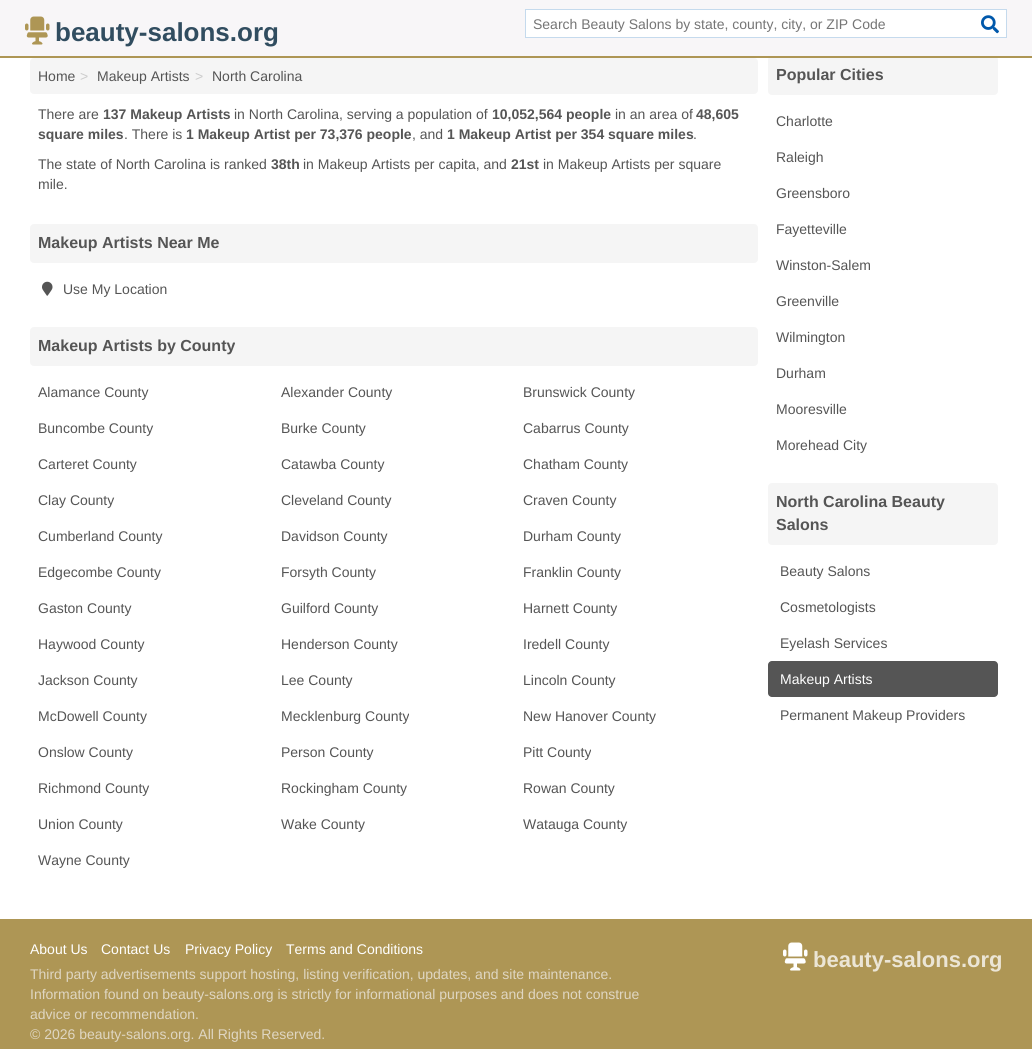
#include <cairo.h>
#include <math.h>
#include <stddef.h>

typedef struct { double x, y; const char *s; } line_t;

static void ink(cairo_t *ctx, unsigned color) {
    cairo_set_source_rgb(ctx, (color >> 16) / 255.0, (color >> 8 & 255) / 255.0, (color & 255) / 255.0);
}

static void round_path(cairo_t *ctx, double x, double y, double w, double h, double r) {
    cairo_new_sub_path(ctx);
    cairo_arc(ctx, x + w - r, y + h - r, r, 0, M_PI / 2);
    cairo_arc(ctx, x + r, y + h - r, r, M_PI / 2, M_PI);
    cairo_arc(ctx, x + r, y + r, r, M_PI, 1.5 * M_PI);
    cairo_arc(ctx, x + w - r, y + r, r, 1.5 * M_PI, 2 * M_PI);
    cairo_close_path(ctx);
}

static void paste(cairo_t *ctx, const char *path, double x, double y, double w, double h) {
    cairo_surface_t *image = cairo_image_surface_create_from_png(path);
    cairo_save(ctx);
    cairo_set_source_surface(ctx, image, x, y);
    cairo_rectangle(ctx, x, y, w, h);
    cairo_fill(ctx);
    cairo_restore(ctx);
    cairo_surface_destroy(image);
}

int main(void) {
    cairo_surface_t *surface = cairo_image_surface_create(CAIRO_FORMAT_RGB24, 1032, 1049);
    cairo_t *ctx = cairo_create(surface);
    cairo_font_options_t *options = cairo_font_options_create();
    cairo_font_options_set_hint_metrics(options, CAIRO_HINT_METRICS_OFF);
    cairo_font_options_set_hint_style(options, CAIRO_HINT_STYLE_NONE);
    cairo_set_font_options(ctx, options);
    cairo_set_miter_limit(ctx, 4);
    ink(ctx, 0xFFFFFF);
    cairo_paint(ctx);
    ink(ctx, 0xF8F6F8);
    cairo_rectangle(ctx, 0, 0, 1032, 56);
    cairo_fill(ctx);
    ink(ctx, 0xF5F5F5);
    round_path(ctx, 768, 56, 230, 39, 4);
    cairo_fill(ctx);
    ink(ctx, 0xAE9655);
    cairo_rectangle(ctx, 0, 56, 1032, 2);
    cairo_fill(ctx);
    paste(ctx, "media/1.png", 25, 16, 25, 29);
    cairo_select_font_face(ctx, "Liberation Sans", CAIRO_FONT_SLANT_NORMAL, CAIRO_FONT_WEIGHT_BOLD);
    cairo_set_font_size(ctx, 26);
    ink(ctx, 0x314D60);
    cairo_move_to(ctx, 55, 41);
    cairo_show_text(ctx, "beauty-salons.org");
    ink(ctx, 0xFFFFFF);
    cairo_rectangle(ctx, 525.5, 9.5, 481, 28);
    cairo_fill_preserve(ctx);
    ink(ctx, 0xC5DAED);
    cairo_set_line_width(ctx, 1);
    cairo_stroke(ctx);
    cairo_select_font_face(ctx, "Liberation Sans", CAIRO_FONT_SLANT_NORMAL, CAIRO_FONT_WEIGHT_NORMAL);
    cairo_set_font_size(ctx, 14);
    ink(ctx, 0x757575);
    cairo_move_to(ctx, 533, 29);
    cairo_show_text(ctx, "Search Beauty Salons by state, county, city, or ZIP Code");
    paste(ctx, "media/2.png", 981, 15, 18, 19);
    ink(ctx, 0xF5F5F5);
    round_path(ctx, 30, 58, 728, 36, 4);
    cairo_fill(ctx);
    ink(ctx, 0x555555);
    cairo_move_to(ctx, 38, 81);
    cairo_show_text(ctx, "Home");
    ink(ctx, 0xCCCCCC);
    cairo_move_to(ctx, 80, 81);
    cairo_show_text(ctx, ">");
    ink(ctx, 0x555555);
    cairo_move_to(ctx, 97, 81);
    cairo_show_text(ctx, "Makeup Artists");
    ink(ctx, 0xCCCCCC);
    cairo_move_to(ctx, 195, 81);
    cairo_show_text(ctx, ">");
    ink(ctx, 0x555555);
    cairo_move_to(ctx, 212, 81);
    cairo_show_text(ctx, "North Carolina");
    cairo_move_to(ctx, 38, 119);
    cairo_show_text(ctx, "There are");
    cairo_select_font_face(ctx, "Liberation Sans", CAIRO_FONT_SLANT_NORMAL, CAIRO_FONT_WEIGHT_BOLD);
    cairo_move_to(ctx, 103, 119);
    cairo_show_text(ctx, "137 Makeup Artists");
    cairo_select_font_face(ctx, "Liberation Sans", CAIRO_FONT_SLANT_NORMAL, CAIRO_FONT_WEIGHT_NORMAL);
    cairo_move_to(ctx, 234, 119);
    cairo_show_text(ctx, "in North Carolina, serving a population of");
    cairo_select_font_face(ctx, "Liberation Sans", CAIRO_FONT_SLANT_NORMAL, CAIRO_FONT_WEIGHT_BOLD);
    cairo_move_to(ctx, 492, 119);
    cairo_show_text(ctx, "10,052,564 people");
    cairo_select_font_face(ctx, "Liberation Sans", CAIRO_FONT_SLANT_NORMAL, CAIRO_FONT_WEIGHT_NORMAL);
    cairo_move_to(ctx, 615, 119);
    cairo_show_text(ctx, "in an area of");
    cairo_select_font_face(ctx, "Liberation Sans", CAIRO_FONT_SLANT_NORMAL, CAIRO_FONT_WEIGHT_BOLD);
    cairo_move_to(ctx, 696, 119);
    cairo_show_text(ctx, "48,605");
    cairo_move_to(ctx, 38, 139);
    cairo_show_text(ctx, "square miles");
    cairo_select_font_face(ctx, "Liberation Sans", CAIRO_FONT_SLANT_NORMAL, CAIRO_FONT_WEIGHT_NORMAL);
    cairo_move_to(ctx, 124, 139);
    cairo_show_text(ctx, ". There is");
    cairo_select_font_face(ctx, "Liberation Sans", CAIRO_FONT_SLANT_NORMAL, CAIRO_FONT_WEIGHT_BOLD);
    cairo_move_to(ctx, 186, 139);
    cairo_show_text(ctx, "1 Makeup Artist per 73,376 people");
    cairo_select_font_face(ctx, "Liberation Sans", CAIRO_FONT_SLANT_NORMAL, CAIRO_FONT_WEIGHT_NORMAL);
    cairo_move_to(ctx, 412, 139);
    cairo_show_text(ctx, ", and");
    cairo_select_font_face(ctx, "Liberation Sans", CAIRO_FONT_SLANT_NORMAL, CAIRO_FONT_WEIGHT_BOLD);
    cairo_move_to(ctx, 447, 139);
    cairo_show_text(ctx, "1 Makeup Artist per 354 square miles");
    cairo_select_font_face(ctx, "Liberation Sans", CAIRO_FONT_SLANT_NORMAL, CAIRO_FONT_WEIGHT_NORMAL);
    cairo_move_to(ctx, 693, 139);
    cairo_show_text(ctx, ".");
    cairo_move_to(ctx, 38, 169);
    cairo_show_text(ctx, "The state of North Carolina is ranked");
    cairo_select_font_face(ctx, "Liberation Sans", CAIRO_FONT_SLANT_NORMAL, CAIRO_FONT_WEIGHT_BOLD);
    cairo_move_to(ctx, 271, 169);
    cairo_show_text(ctx, "38th");
    cairo_select_font_face(ctx, "Liberation Sans", CAIRO_FONT_SLANT_NORMAL, CAIRO_FONT_WEIGHT_NORMAL);
    cairo_move_to(ctx, 303, 169);
    cairo_show_text(ctx, "in Makeup Artists per capita, and");
    cairo_select_font_face(ctx, "Liberation Sans", CAIRO_FONT_SLANT_NORMAL, CAIRO_FONT_WEIGHT_BOLD);
    cairo_move_to(ctx, 511, 169);
    cairo_show_text(ctx, "21st");
    cairo_select_font_face(ctx, "Liberation Sans", CAIRO_FONT_SLANT_NORMAL, CAIRO_FONT_WEIGHT_NORMAL);
    cairo_move_to(ctx, 543, 169);
    cairo_show_text(ctx, "in Makeup Artists per square");
    cairo_move_to(ctx, 38, 189);
    cairo_show_text(ctx, "mile.");
    ink(ctx, 0xF5F5F5);
    round_path(ctx, 30, 224, 728, 39, 4);
    cairo_fill(ctx);
    cairo_select_font_face(ctx, "Liberation Sans", CAIRO_FONT_SLANT_NORMAL, CAIRO_FONT_WEIGHT_BOLD);
    cairo_set_font_size(ctx, 16);
    ink(ctx, 0x555555);
    cairo_move_to(ctx, 38, 248);
    cairo_show_text(ctx, "Makeup Artists Near Me");
    paste(ctx, "media/3.png", 42, 281, 11, 15);
    cairo_select_font_face(ctx, "Liberation Sans", CAIRO_FONT_SLANT_NORMAL, CAIRO_FONT_WEIGHT_NORMAL);
    cairo_set_font_size(ctx, 14);
    cairo_move_to(ctx, 63, 294);
    cairo_show_text(ctx, "Use My Location");
    ink(ctx, 0xF5F5F5);
    round_path(ctx, 30, 327, 728, 39, 4);
    cairo_fill(ctx);
    cairo_select_font_face(ctx, "Liberation Sans", CAIRO_FONT_SLANT_NORMAL, CAIRO_FONT_WEIGHT_BOLD);
    cairo_set_font_size(ctx, 16);
    ink(ctx, 0x555555);
    cairo_move_to(ctx, 38, 351);
    cairo_show_text(ctx, "Makeup Artists by County");
    cairo_select_font_face(ctx, "Liberation Sans", CAIRO_FONT_SLANT_NORMAL, CAIRO_FONT_WEIGHT_NORMAL);
    cairo_set_font_size(ctx, 14);
    {
        static const line_t items[] = {
            {38, 397, "Alamance County"},
            {281, 397, "Alexander County"},
            {523, 397, "Brunswick County"},
            {38, 433, "Buncombe County"},
            {281, 433, "Burke County"},
            {523, 433, "Cabarrus County"},
            {38, 469, "Carteret County"},
            {281, 469, "Catawba County"},
            {523, 469, "Chatham County"},
            {38, 505, "Clay County"},
            {281, 505, "Cleveland County"},
            {523, 505, "Craven County"},
            {38, 541, "Cumberland County"},
            {281, 541, "Davidson County"},
            {523, 541, "Durham County"},
            {38, 577, "Edgecombe County"},
            {281, 577, "Forsyth County"},
            {523, 577, "Franklin County"},
            {38, 613, "Gaston County"},
            {281, 613, "Guilford County"},
            {523, 613, "Harnett County"},
            {38, 649, "Haywood County"},
            {281, 649, "Henderson County"},
            {523, 649, "Iredell County"},
            {38, 685, "Jackson County"},
            {281, 685, "Lee County"},
            {523, 685, "Lincoln County"},
            {38, 721, "McDowell County"},
            {281, 721, "Mecklenburg County"},
            {523, 721, "New Hanover County"},
            {38, 757, "Onslow County"},
            {281, 757, "Person County"},
            {523, 757, "Pitt County"},
            {38, 793, "Richmond County"},
            {281, 793, "Rockingham County"},
            {523, 793, "Rowan County"},
            {38, 829, "Union County"},
            {281, 829, "Wake County"},
            {523, 829, "Watauga County"},
            {38, 865, "Wayne County"},
        };
        for (size_t i = 0; i < sizeof items / sizeof *items; i++) {
            cairo_move_to(ctx, items[i].x, items[i].y);
            cairo_show_text(ctx, items[i].s);
        }
    }
    cairo_select_font_face(ctx, "Liberation Sans", CAIRO_FONT_SLANT_NORMAL, CAIRO_FONT_WEIGHT_BOLD);
    cairo_set_font_size(ctx, 16);
    cairo_move_to(ctx, 776, 80);
    cairo_show_text(ctx, "Popular Cities");
    cairo_select_font_face(ctx, "Liberation Sans", CAIRO_FONT_SLANT_NORMAL, CAIRO_FONT_WEIGHT_NORMAL);
    cairo_set_font_size(ctx, 14);
    {
        static const line_t items[] = {
            {776, 126, "Charlotte"},
            {776, 162, "Raleigh"},
            {776, 198, "Greensboro"},
            {776, 234, "Fayetteville"},
            {776, 270, "Winston-Salem"},
            {776, 306, "Greenville"},
            {776, 342, "Wilmington"},
            {776, 378, "Durham"},
            {776, 414, "Mooresville"},
            {776, 450, "Morehead City"},
        };
        for (size_t i = 0; i < sizeof items / sizeof *items; i++) {
            cairo_move_to(ctx, items[i].x, items[i].y);
            cairo_show_text(ctx, items[i].s);
        }
    }
    ink(ctx, 0xF5F5F5);
    round_path(ctx, 768, 483, 230, 62, 4);
    cairo_fill(ctx);
    cairo_select_font_face(ctx, "Liberation Sans", CAIRO_FONT_SLANT_NORMAL, CAIRO_FONT_WEIGHT_BOLD);
    cairo_set_font_size(ctx, 16);
    ink(ctx, 0x555555);
    cairo_move_to(ctx, 776, 507);
    cairo_show_text(ctx, "North Carolina Beauty");
    cairo_move_to(ctx, 776, 530);
    cairo_show_text(ctx, "Salons");
    cairo_select_font_face(ctx, "Liberation Sans", CAIRO_FONT_SLANT_NORMAL, CAIRO_FONT_WEIGHT_NORMAL);
    cairo_set_font_size(ctx, 14);
    {
        static const line_t items[] = {
            {780, 576, "Beauty Salons"},
            {780, 612, "Cosmetologists"},
            {780, 648, "Eyelash Services"},
        };
        for (size_t i = 0; i < sizeof items / sizeof *items; i++) {
            cairo_move_to(ctx, items[i].x, items[i].y);
            cairo_show_text(ctx, items[i].s);
        }
    }
    round_path(ctx, 768, 661, 230, 36, 4);
    cairo_fill(ctx);
    ink(ctx, 0xFFFFFF);
    cairo_move_to(ctx, 780, 684);
    cairo_show_text(ctx, "Makeup Artists");
    ink(ctx, 0x555555);
    cairo_move_to(ctx, 780, 720);
    cairo_show_text(ctx, "Permanent Makeup Providers");
    ink(ctx, 0xAE9655);
    cairo_rectangle(ctx, 0, 919, 1032, 130);
    cairo_fill(ctx);
    ink(ctx, 0xFFFFFF);
    {
        static const line_t items[] = {
            {30, 954, "About Us"},
            {101, 954, "Contact Us"},
            {185, 954, "Privacy Policy"},
            {286, 954, "Terms and Conditions"},
        };
        for (size_t i = 0; i < sizeof items / sizeof *items; i++) {
            cairo_move_to(ctx, items[i].x, items[i].y);
            cairo_show_text(ctx, items[i].s);
        }
    }
    ink(ctx, 0xDFD6C2);
    {
        static const line_t items[] = {
            {30, 979, "Third party advertisements support hosting, listing verification, updates, and site maintenance."},
            {30, 999, "Information found on beauty-salons.org is strictly for informational purposes and does not construe"},
            {30, 1019, "advice or recommendation."},
            {30, 1039, "© 2026 beauty-salons.org. All Rights Reserved."},
        };
        for (size_t i = 0; i < sizeof items / sizeof *items; i++) {
            cairo_move_to(ctx, items[i].x, items[i].y);
            cairo_show_text(ctx, items[i].s);
        }
    }
    paste(ctx, "media/4.png", 783, 942, 25, 29);
    cairo_select_font_face(ctx, "Liberation Sans", CAIRO_FONT_SLANT_NORMAL, CAIRO_FONT_WEIGHT_BOLD);
    cairo_set_font_size(ctx, 22);
    ink(ctx, 0xEBE5D5);
    cairo_move_to(ctx, 813, 967);
    cairo_show_text(ctx, "beauty-salons.org");
    cairo_surface_write_to_png(surface, "image.png");
    cairo_font_options_destroy(options);
    cairo_destroy(ctx);
    cairo_surface_destroy(surface);
    return 0;
}
